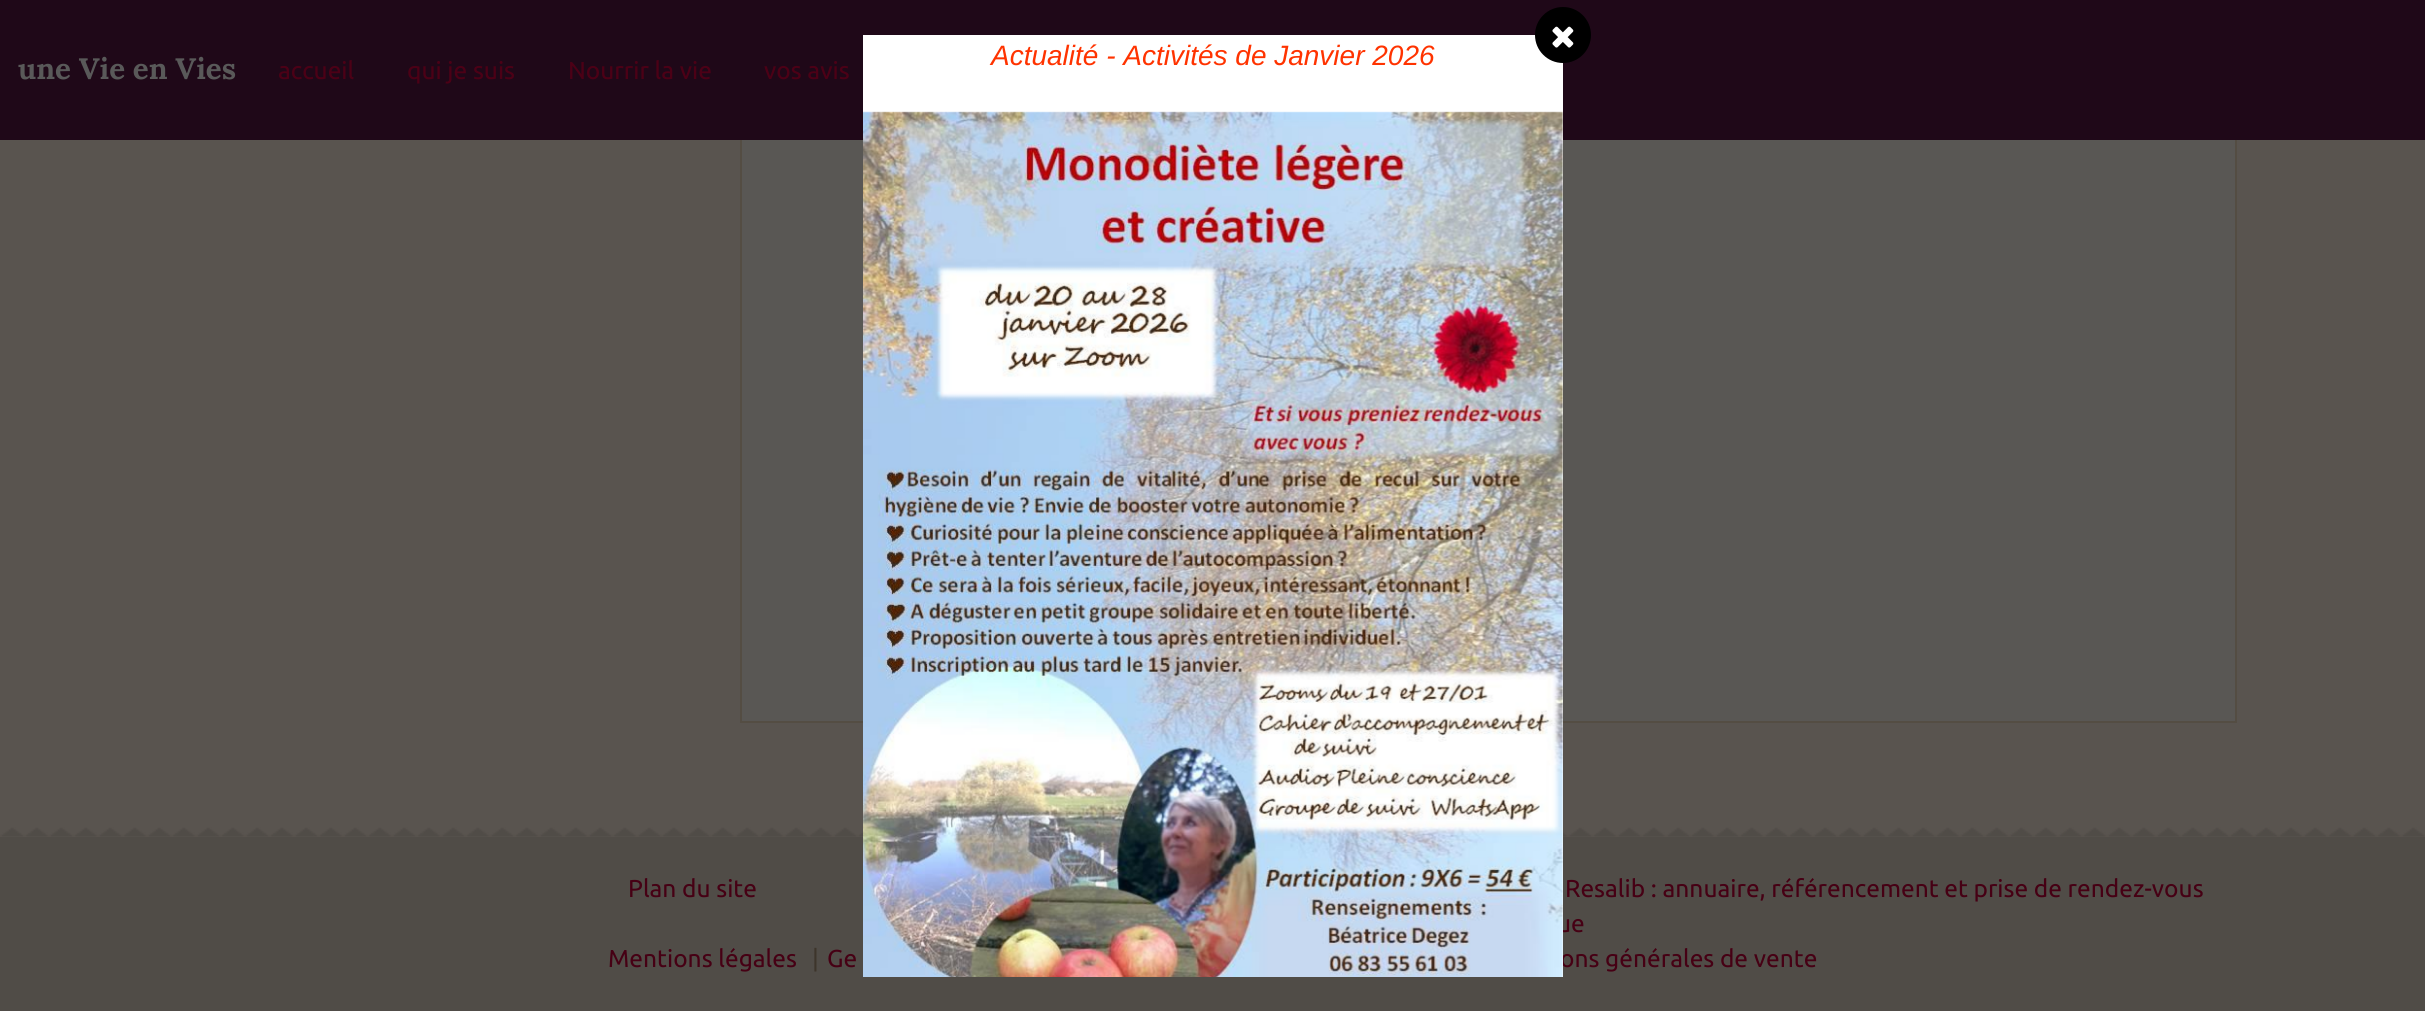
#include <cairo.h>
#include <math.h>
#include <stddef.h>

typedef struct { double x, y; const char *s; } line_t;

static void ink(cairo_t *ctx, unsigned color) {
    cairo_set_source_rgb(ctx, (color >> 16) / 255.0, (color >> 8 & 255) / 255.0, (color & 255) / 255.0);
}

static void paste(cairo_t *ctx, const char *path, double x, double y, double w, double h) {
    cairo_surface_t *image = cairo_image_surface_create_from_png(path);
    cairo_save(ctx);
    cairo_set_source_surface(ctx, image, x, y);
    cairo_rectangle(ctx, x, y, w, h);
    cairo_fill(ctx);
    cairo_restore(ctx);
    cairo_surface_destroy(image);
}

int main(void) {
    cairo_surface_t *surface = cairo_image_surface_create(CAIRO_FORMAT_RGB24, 2425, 1011);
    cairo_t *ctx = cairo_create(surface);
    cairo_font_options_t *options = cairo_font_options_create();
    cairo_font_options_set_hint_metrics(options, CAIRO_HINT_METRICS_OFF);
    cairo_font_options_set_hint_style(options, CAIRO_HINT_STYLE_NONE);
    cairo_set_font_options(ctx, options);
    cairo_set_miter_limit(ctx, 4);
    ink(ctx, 0x59544F);
    cairo_paint(ctx);
    ink(ctx, 0x595754);
    cairo_rectangle(ctx, 742, 140, 1493, 581);
    cairo_fill(ctx);
    cairo_rectangle(ctx, 741, -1, 1495, 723);
    ink(ctx, 0x544D43);
    cairo_stroke(ctx);
    ink(ctx, 0x1F0818);
    cairo_rectangle(ctx, 0, 0, 2425, 140);
    cairo_fill(ctx);
    cairo_select_font_face(ctx, "Lora", CAIRO_FONT_SLANT_NORMAL, CAIRO_FONT_WEIGHT_BOLD);
    cairo_set_font_size(ctx, 29.5);
    ink(ctx, 0x595959);
    cairo_move_to(ctx, 18, 79);
    cairo_show_text(ctx, "une Vie en Vies");
    cairo_select_font_face(ctx, "Ubuntu", CAIRO_FONT_SLANT_NORMAL, CAIRO_FONT_WEIGHT_NORMAL);
    cairo_set_font_size(ctx, 24.5);
    ink(ctx, 0x4C0016);
    {
        static const line_t items[] = {
            {278, 79, "accueil"},
            {407, 79, "qui je suis"},
            {568, 79, "Nourrir la vie"},
            {764, 79, "vos avis"},
        };
        for (size_t i = 0; i < sizeof items / sizeof *items; i++) {
            cairo_move_to(ctx, items[i].x, items[i].y);
            cairo_show_text(ctx, items[i].s);
        }
    }
    paste(ctx, "media/3.png", 0, 827, 2425, 10);
    ink(ctx, 0x504C47);
    cairo_rectangle(ctx, 0, 837, 2425, 174);
    cairo_fill(ctx);
    ink(ctx, 0x460014);
    cairo_move_to(ctx, 1557, 932);
    cairo_show_text(ctx, "ue");
    cairo_move_to(ctx, 1560, 967);
    cairo_show_text(ctx, "ons générales de vente");
    ink(ctx, 0xFFFFFF);
    cairo_rectangle(ctx, 863, 35, 700, 942);
    cairo_fill(ctx);
    cairo_select_font_face(ctx, "Liberation Sans", CAIRO_FONT_SLANT_ITALIC, CAIRO_FONT_WEIGHT_NORMAL);
    cairo_set_font_size(ctx, 28);
    ink(ctx, 0xFF3300);
    cairo_move_to(ctx, 991, 65);
    cairo_show_text(ctx, "Actualité - Activités de Janvier 2026");
    paste(ctx, "media/1.png", 863, 111, 700, 866);
    ink(ctx, 0x000000);
    cairo_arc(ctx, 1563, 35, 28, 0, 2 * M_PI);
    cairo_fill(ctx);
    paste(ctx, "media/2.png", 1552, 26, 22, 22);
    cairo_select_font_face(ctx, "Ubuntu", CAIRO_FONT_SLANT_NORMAL, CAIRO_FONT_WEIGHT_NORMAL);
    cairo_set_font_size(ctx, 24.5);
    ink(ctx, 0x460014);
    {
        static const line_t items[] = {
            {628, 897, "Plan du site"},
            {1565, 897, "Resalib : annuaire, référencement et prise de rendez-vous"},
            {608, 967, "Mentions légales"},
        };
        for (size_t i = 0; i < sizeof items / sizeof *items; i++) {
            cairo_move_to(ctx, items[i].x, items[i].y);
            cairo_show_text(ctx, items[i].s);
        }
    }
    ink(ctx, 0x3D352B);
    cairo_move_to(ctx, 812, 967);
    cairo_show_text(ctx, "|");
    ink(ctx, 0x460014);
    cairo_move_to(ctx, 827, 967);
    cairo_show_text(ctx, "Ge");
    cairo_surface_write_to_png(surface, "image.png");
    cairo_font_options_destroy(options);
    cairo_destroy(ctx);
    cairo_surface_destroy(surface);
    return 0;
}
